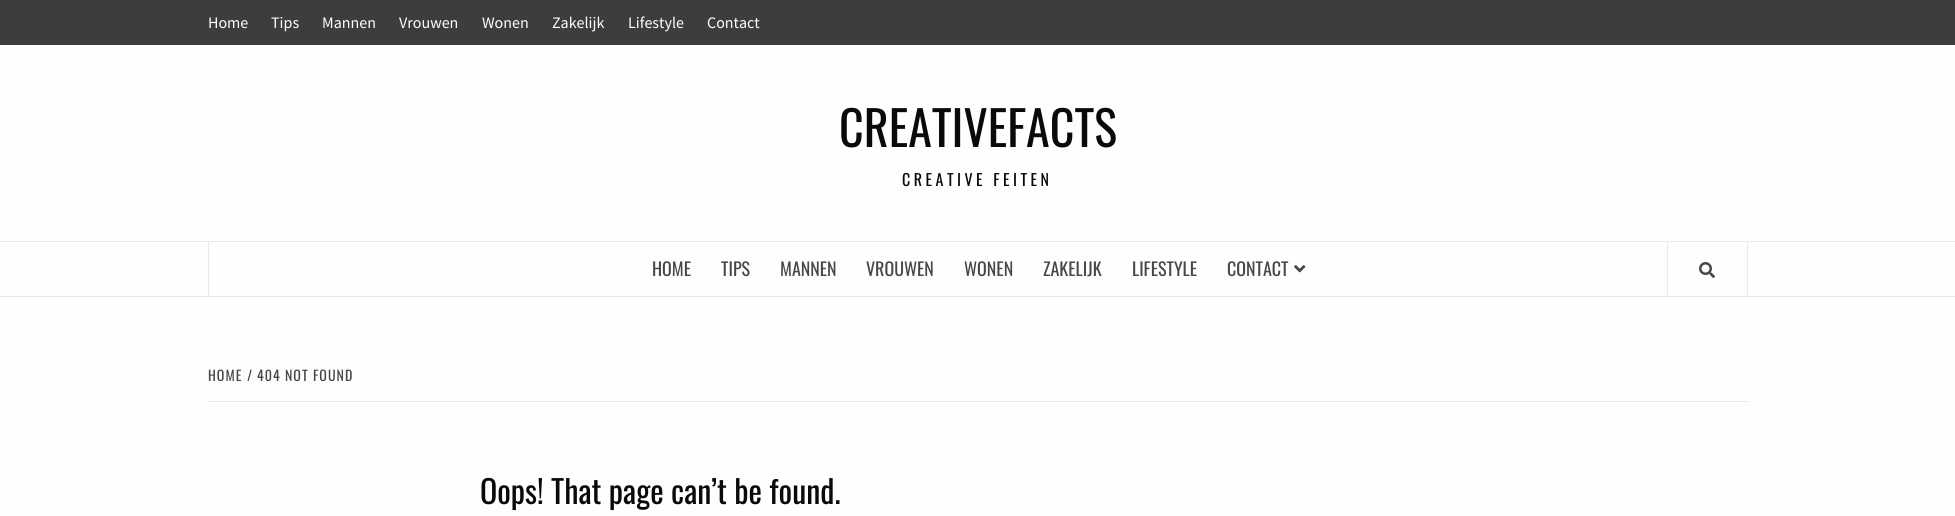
#include <cairo.h>
#include <math.h>
#include <stddef.h>

typedef struct { double x, y; const char *s; } line_t;
typedef struct { double x, y, w, h; unsigned color; } box_t;

static void ink(cairo_t *ctx, unsigned color) {
    cairo_set_source_rgb(ctx, (color >> 16) / 255.0, (color >> 8 & 255) / 255.0, (color & 255) / 255.0);
}

static void write_spaced(cairo_t *ctx, double x, double y, const char *s, double letter, double word) {
    cairo_move_to(ctx, x, y);
    while (*s) {
        char ch[5] = {0};
        int n = 0;
        do ch[n++] = *s++; while ((*s & 0xC0) == 0x80);
        cairo_show_text(ctx, ch);
        cairo_rel_move_to(ctx, letter + word * (*ch == ' '), 0);
    }
}

static void paste(cairo_t *ctx, const char *path, double x, double y, double w, double h) {
    cairo_surface_t *image = cairo_image_surface_create_from_png(path);
    cairo_save(ctx);
    cairo_set_source_surface(ctx, image, x, y);
    cairo_rectangle(ctx, x, y, w, h);
    cairo_fill(ctx);
    cairo_restore(ctx);
    cairo_surface_destroy(image);
}

int main(void) {
    cairo_surface_t *surface = cairo_image_surface_create(CAIRO_FORMAT_RGB24, 1955, 516);
    cairo_t *ctx = cairo_create(surface);
    cairo_font_options_t *options = cairo_font_options_create();
    cairo_font_options_set_hint_metrics(options, CAIRO_HINT_METRICS_OFF);
    cairo_font_options_set_hint_style(options, CAIRO_HINT_STYLE_NONE);
    cairo_set_font_options(ctx, options);
    cairo_set_miter_limit(ctx, 4);
    ink(ctx, 0xFEFEFE);
    cairo_paint(ctx);
    ink(ctx, 0x3D3D3D);
    cairo_rectangle(ctx, 0, 0, 1955, 45);
    cairo_fill(ctx);
    cairo_select_font_face(ctx, "Source Sans Pro", CAIRO_FONT_SLANT_NORMAL, CAIRO_FONT_WEIGHT_NORMAL);
    cairo_set_font_size(ctx, 16);
    ink(ctx, 0xFEFEFE);
    {
        static const line_t items[] = {
            {208, 28, "Home"},
            {271, 28, "Tips"},
            {322, 28, "Mannen"},
            {399, 28, "Vrouwen"},
            {482, 28, "Wonen"},
            {552, 28, "Zakelijk"},
            {628, 28, "Lifestyle"},
            {707, 28, "Contact"},
        };
        for (size_t i = 0; i < sizeof items / sizeof *items; i++) {
            cairo_move_to(ctx, items[i].x, items[i].y);
            cairo_show_text(ctx, items[i].s);
        }
    }
    cairo_select_font_face(ctx, "Oswald", CAIRO_FONT_SLANT_NORMAL, CAIRO_FONT_WEIGHT_NORMAL);
    cairo_set_font_size(ctx, 48);
    ink(ctx, 0x0A0A0A);
    cairo_move_to(ctx, 839, 147);
    cairo_show_text(ctx, "CREATIVEFACTS");
    cairo_set_font_size(ctx, 16);
    write_spaced(ctx, 902, 186, "CREATIVE FEITEN", 3.5, 0);
    {
        static const box_t items[] = {
            {0, 241, 1955, 1, 0xE8E8E8},
            {0, 296, 1955, 1, 0xE8E8E8},
            {1747, 242, 1, 54, 0xE8E8E8},
            {208, 242, 1, 54, 0xE8E8E8},
        };
        for (size_t i = 0; i < sizeof items / sizeof *items; i++) {
            ink(ctx, items[i].color);
            cairo_rectangle(ctx, items[i].x, items[i].y, items[i].w, items[i].h);
            cairo_fill(ctx);
        }
    }
    cairo_set_font_size(ctx, 18);
    ink(ctx, 0x474747);
    {
        static const line_t items[] = {
            {652, 276, "HOME"},
            {721, 276, "TIPS"},
            {780, 276, "MANNEN"},
            {866, 276, "VROUWEN"},
            {964, 276, "WONEN"},
            {1043, 276, "ZAKELIJK"},
            {1132, 276, "LIFESTYLE"},
            {1227, 276, "CONTACT"},
        };
        for (size_t i = 0; i < sizeof items / sizeof *items; i++) {
            cairo_move_to(ctx, items[i].x, items[i].y);
            cairo_show_text(ctx, items[i].s);
        }
    }
    paste(ctx, "media/1.png", 1294, 265, 12, 8);
    ink(ctx, 0xE8E8E8);
    cairo_rectangle(ctx, 1667, 242, 1, 55);
    cairo_fill(ctx);
    paste(ctx, "media/2.png", 1699, 262, 16, 16);
    cairo_rectangle(ctx, 208, 401, 1540, 1);
    cairo_fill(ctx);
    cairo_set_font_size(ctx, 14);
    ink(ctx, 0x474747);
    {
        static const line_t items[] = {
            {208, 381, "HOME"},
            {247, 381, "/"},
            {257, 381, "404 NOT FOUND"},
        };
        for (size_t i = 0; i < sizeof items / sizeof *items; i++) {
            write_spaced(ctx, items[i].x, items[i].y, items[i].s, 1, 0);
        }
    }
    cairo_set_font_size(ctx, 32);
    ink(ctx, 0x0A0A0A);
    cairo_move_to(ctx, 480, 504);
    cairo_show_text(ctx, "Oops! That page can’t be found.");
    cairo_surface_write_to_png(surface, "image.png");
    cairo_font_options_destroy(options);
    cairo_destroy(ctx);
    cairo_surface_destroy(surface);
    return 0;
}
